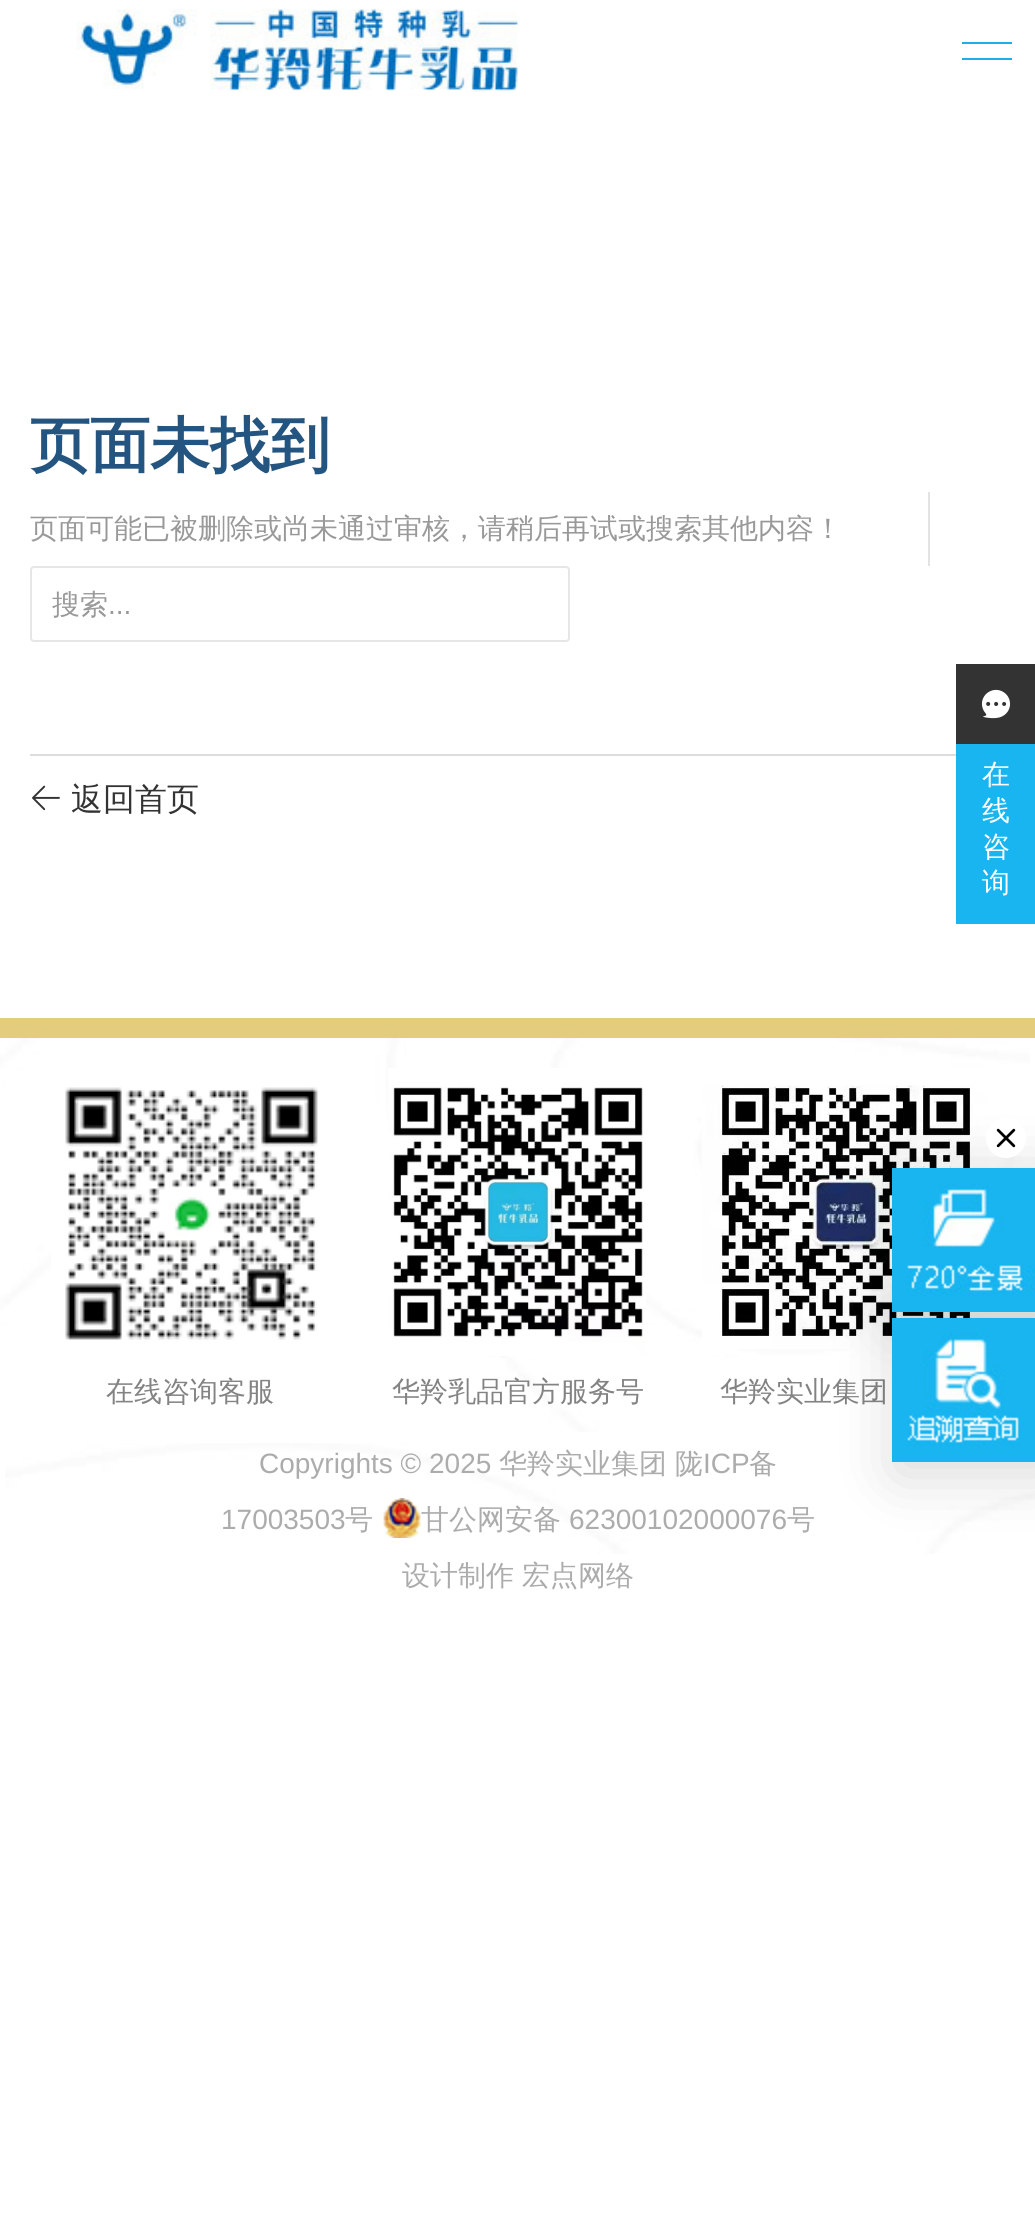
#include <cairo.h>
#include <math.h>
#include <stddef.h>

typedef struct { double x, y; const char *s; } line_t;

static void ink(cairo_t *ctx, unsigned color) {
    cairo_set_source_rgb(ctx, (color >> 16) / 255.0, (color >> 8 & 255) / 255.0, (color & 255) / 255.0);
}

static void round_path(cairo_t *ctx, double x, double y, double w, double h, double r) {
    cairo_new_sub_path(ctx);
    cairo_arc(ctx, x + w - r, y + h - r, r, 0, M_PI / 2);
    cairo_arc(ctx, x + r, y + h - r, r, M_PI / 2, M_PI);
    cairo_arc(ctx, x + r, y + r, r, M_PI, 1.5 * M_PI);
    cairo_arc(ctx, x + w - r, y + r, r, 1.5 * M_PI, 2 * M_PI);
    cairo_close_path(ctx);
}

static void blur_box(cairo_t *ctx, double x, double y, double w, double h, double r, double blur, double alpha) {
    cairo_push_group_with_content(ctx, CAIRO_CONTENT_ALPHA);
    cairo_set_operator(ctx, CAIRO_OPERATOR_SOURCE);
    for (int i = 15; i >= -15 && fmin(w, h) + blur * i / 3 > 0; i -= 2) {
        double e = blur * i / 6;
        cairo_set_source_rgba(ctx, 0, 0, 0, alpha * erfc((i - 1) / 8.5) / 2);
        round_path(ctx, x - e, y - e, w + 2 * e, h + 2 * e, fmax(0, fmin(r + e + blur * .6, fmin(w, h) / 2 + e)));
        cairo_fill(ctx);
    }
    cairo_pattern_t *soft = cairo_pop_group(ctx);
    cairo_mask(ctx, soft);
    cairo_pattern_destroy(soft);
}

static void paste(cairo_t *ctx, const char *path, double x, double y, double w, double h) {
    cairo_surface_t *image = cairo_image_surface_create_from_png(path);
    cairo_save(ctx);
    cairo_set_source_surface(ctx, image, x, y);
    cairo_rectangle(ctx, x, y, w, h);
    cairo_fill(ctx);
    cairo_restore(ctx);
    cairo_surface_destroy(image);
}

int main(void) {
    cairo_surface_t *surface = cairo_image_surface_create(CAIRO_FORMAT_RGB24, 1035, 2213);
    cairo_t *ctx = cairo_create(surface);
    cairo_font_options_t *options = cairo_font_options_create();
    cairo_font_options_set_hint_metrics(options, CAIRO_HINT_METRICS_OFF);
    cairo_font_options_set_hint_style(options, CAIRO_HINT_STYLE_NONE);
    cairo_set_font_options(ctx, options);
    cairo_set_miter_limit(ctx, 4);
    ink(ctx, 0xFFFFFF);
    cairo_paint(ctx);
    paste(ctx, "media/1.png", 76, 9, 442, 83);
    ink(ctx, 0x1BAFE6);
    cairo_rectangle(ctx, 962, 42, 50, 2);
    cairo_fill(ctx);
    cairo_rectangle(ctx, 962, 58, 50, 2);
    cairo_fill(ctx);
    cairo_select_font_face(ctx, "WenQuanYi Zen Hei", CAIRO_FONT_SLANT_NORMAL, CAIRO_FONT_WEIGHT_BOLD);
    cairo_set_font_size(ctx, 60);
    ink(ctx, 0x245580);
    cairo_move_to(ctx, 30, 466);
    cairo_show_text(ctx, "页面未找到");
    cairo_select_font_face(ctx, "WenQuanYi Zen Hei Medium", CAIRO_FONT_SLANT_NORMAL, CAIRO_FONT_WEIGHT_NORMAL);
    cairo_set_font_size(ctx, 28);
    ink(ctx, 0x999999);
    cairo_move_to(ctx, 30, 538);
    cairo_show_text(ctx, "页面可能已被删除或尚未通过审核，请稍后再试或搜索其他内容！");
    ink(ctx, 0xE3E3E3);
    cairo_rectangle(ctx, 928, 492, 2, 74);
    cairo_fill(ctx);
    round_path(ctx, 31, 567, 538, 74, 3);
    ink(ctx, 0xE6E6E6);
    cairo_stroke(ctx);
    ink(ctx, 0x999999);
    cairo_move_to(ctx, 52, 614);
    cairo_show_text(ctx, "搜索");
    cairo_select_font_face(ctx, "Liberation Sans", CAIRO_FONT_SLANT_NORMAL, CAIRO_FONT_WEIGHT_NORMAL);
    cairo_move_to(ctx, 108, 614);
    cairo_show_text(ctx, "...");
    ink(ctx, 0xDDDDDD);
    cairo_rectangle(ctx, 30, 754, 926, 2);
    cairo_fill(ctx);
    paste(ctx, "media/2.png", 32, 785, 28, 26);
    cairo_select_font_face(ctx, "WenQuanYi Zen Hei Medium", CAIRO_FONT_SLANT_NORMAL, CAIRO_FONT_WEIGHT_NORMAL);
    cairo_set_font_size(ctx, 32);
    ink(ctx, 0x333333);
    cairo_move_to(ctx, 71, 810);
    cairo_show_text(ctx, "返回首页");
    ink(ctx, 0x18B5F0);
    cairo_rectangle(ctx, 956, 744, 79, 180);
    cairo_fill(ctx);
    ink(ctx, 0x333333);
    cairo_rectangle(ctx, 956, 664, 79, 80);
    cairo_fill(ctx);
    paste(ctx, "media/3.png", 981, 689, 30, 30);
    cairo_set_font_size(ctx, 28);
    ink(ctx, 0xFFFFFF);
    {
        static const line_t items[] = {
            {982, 784, "在"},
            {982, 820, "线"},
            {982, 856, "咨"},
            {982, 892, "询"},
        };
        for (size_t i = 0; i < sizeof items / sizeof *items; i++) {
            cairo_move_to(ctx, items[i].x, items[i].y);
            cairo_show_text(ctx, items[i].s);
        }
    }
    paste(ctx, "media/4.png", 0, 1038, 1030, 394);
    ink(ctx, 0xE3CC7B);
    cairo_rectangle(ctx, 0, 1018, 1035, 20);
    cairo_fill(ctx);
    paste(ctx, "media/5.png", 51, 1087, 267, 253);
    ink(ctx, 0x838383);
    cairo_move_to(ctx, 106, 1401);
    cairo_show_text(ctx, "在线咨询客服");
    paste(ctx, "media/6.png", 388, 1068, 258, 288);
    cairo_move_to(ctx, 392, 1401);
    cairo_show_text(ctx, "华羚乳品官方服务号");
    paste(ctx, "media/7.png", 702, 1085, 287, 264);
    cairo_move_to(ctx, 720, 1401);
    cairo_show_text(ctx, "华羚实业集团");
    ink(ctx, 0x000000);
    blur_box(ctx, 896, 1172, 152, 152, 0, 31, 0.15);
    paste(ctx, "media/11.png", 5, 1443, 1030, 111);
    blur_box(ctx, 896, 1322, 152, 152, 0, 31, 0.15);
    paste(ctx, "media/8.png", 892, 1168, 143, 144);
    ink(ctx, 0xFFFFFF);
    cairo_arc(ctx, 1006, 1138, 20, 0, 2 * M_PI);
    cairo_fill(ctx);
    paste(ctx, "media/9.png", 996, 1128, 20, 20);
    paste(ctx, "media/10.png", 892, 1318, 143, 144);
    cairo_select_font_face(ctx, "Liberation Sans", CAIRO_FONT_SLANT_NORMAL, CAIRO_FONT_WEIGHT_NORMAL);
    ink(ctx, 0xACACAC);
    cairo_move_to(ctx, 259, 1473);
    cairo_show_text(ctx, "Copyrights © 2025");
    cairo_select_font_face(ctx, "WenQuanYi Zen Hei Medium", CAIRO_FONT_SLANT_NORMAL, CAIRO_FONT_WEIGHT_NORMAL);
    cairo_move_to(ctx, 499, 1473);
    cairo_show_text(ctx, "华羚实业集团");
    cairo_move_to(ctx, 675, 1473);
    cairo_show_text(ctx, "陇");
    cairo_select_font_face(ctx, "Liberation Sans", CAIRO_FONT_SLANT_NORMAL, CAIRO_FONT_WEIGHT_NORMAL);
    cairo_move_to(ctx, 703, 1473);
    cairo_show_text(ctx, "ICP");
    cairo_select_font_face(ctx, "WenQuanYi Zen Hei Medium", CAIRO_FONT_SLANT_NORMAL, CAIRO_FONT_WEIGHT_NORMAL);
    cairo_move_to(ctx, 749, 1473);
    cairo_show_text(ctx, "备");
    cairo_select_font_face(ctx, "Liberation Sans", CAIRO_FONT_SLANT_NORMAL, CAIRO_FONT_WEIGHT_NORMAL);
    cairo_move_to(ctx, 221, 1529);
    cairo_show_text(ctx, "17003503");
    cairo_select_font_face(ctx, "WenQuanYi Zen Hei Medium", CAIRO_FONT_SLANT_NORMAL, CAIRO_FONT_WEIGHT_NORMAL);
    cairo_move_to(ctx, 345, 1529);
    cairo_show_text(ctx, "号");
    paste(ctx, "media/12.png", 383, 1498, 38, 40);
    cairo_move_to(ctx, 421, 1529);
    cairo_show_text(ctx, "甘公网安备");
    cairo_select_font_face(ctx, "Liberation Sans", CAIRO_FONT_SLANT_NORMAL, CAIRO_FONT_WEIGHT_NORMAL);
    cairo_move_to(ctx, 569, 1529);
    cairo_show_text(ctx, "62300102000076");
    cairo_select_font_face(ctx, "WenQuanYi Zen Hei Medium", CAIRO_FONT_SLANT_NORMAL, CAIRO_FONT_WEIGHT_NORMAL);
    {
        static const line_t items[] = {
            {787, 1529, "号"},
            {402, 1585, "设计制作"},
            {522, 1585, "宏点网络"},
        };
        for (size_t i = 0; i < sizeof items / sizeof *items; i++) {
            cairo_move_to(ctx, items[i].x, items[i].y);
            cairo_show_text(ctx, items[i].s);
        }
    }
    cairo_surface_write_to_png(surface, "image.png");
    cairo_font_options_destroy(options);
    cairo_destroy(ctx);
    cairo_surface_destroy(surface);
    return 0;
}
